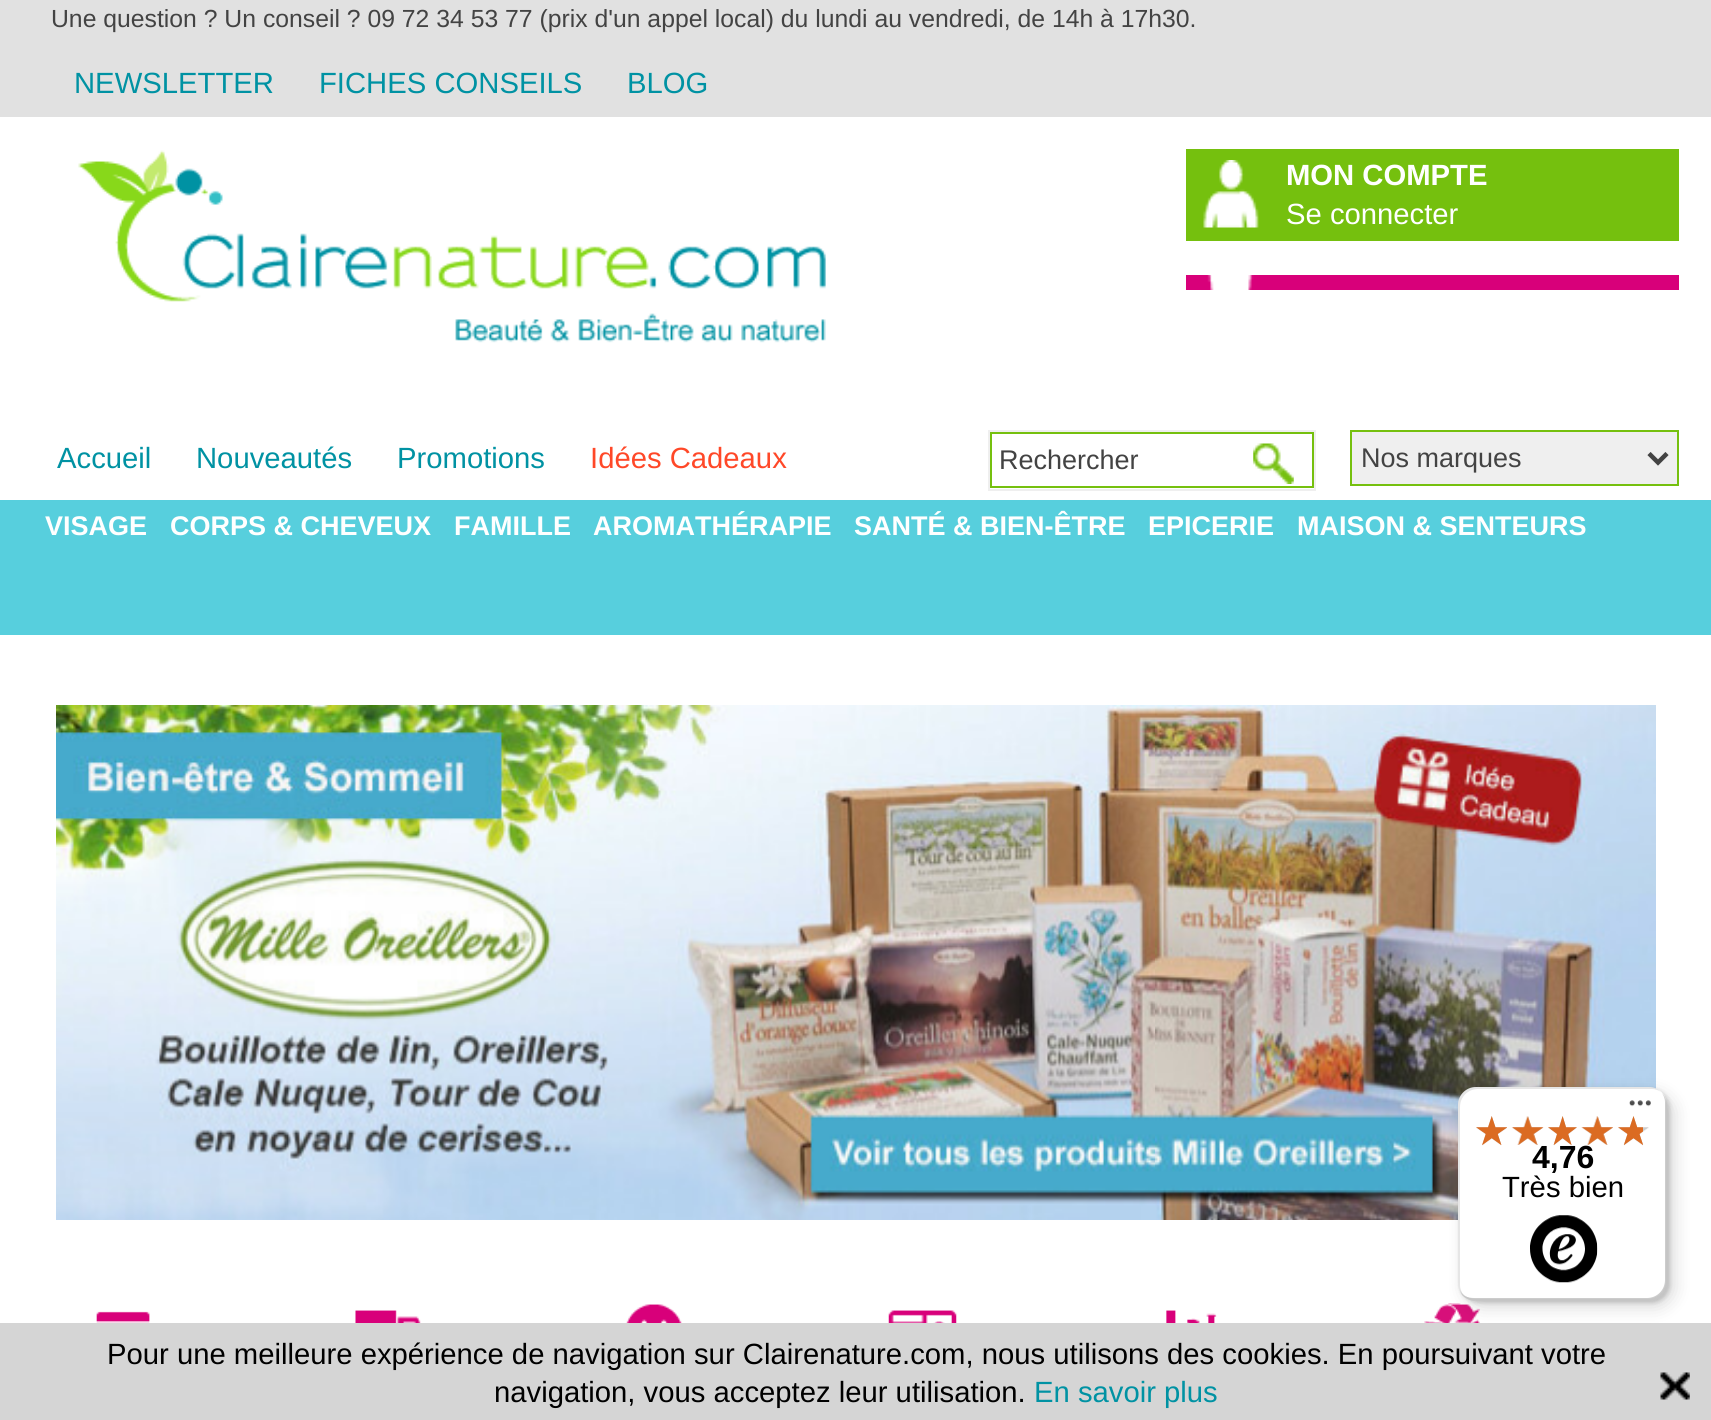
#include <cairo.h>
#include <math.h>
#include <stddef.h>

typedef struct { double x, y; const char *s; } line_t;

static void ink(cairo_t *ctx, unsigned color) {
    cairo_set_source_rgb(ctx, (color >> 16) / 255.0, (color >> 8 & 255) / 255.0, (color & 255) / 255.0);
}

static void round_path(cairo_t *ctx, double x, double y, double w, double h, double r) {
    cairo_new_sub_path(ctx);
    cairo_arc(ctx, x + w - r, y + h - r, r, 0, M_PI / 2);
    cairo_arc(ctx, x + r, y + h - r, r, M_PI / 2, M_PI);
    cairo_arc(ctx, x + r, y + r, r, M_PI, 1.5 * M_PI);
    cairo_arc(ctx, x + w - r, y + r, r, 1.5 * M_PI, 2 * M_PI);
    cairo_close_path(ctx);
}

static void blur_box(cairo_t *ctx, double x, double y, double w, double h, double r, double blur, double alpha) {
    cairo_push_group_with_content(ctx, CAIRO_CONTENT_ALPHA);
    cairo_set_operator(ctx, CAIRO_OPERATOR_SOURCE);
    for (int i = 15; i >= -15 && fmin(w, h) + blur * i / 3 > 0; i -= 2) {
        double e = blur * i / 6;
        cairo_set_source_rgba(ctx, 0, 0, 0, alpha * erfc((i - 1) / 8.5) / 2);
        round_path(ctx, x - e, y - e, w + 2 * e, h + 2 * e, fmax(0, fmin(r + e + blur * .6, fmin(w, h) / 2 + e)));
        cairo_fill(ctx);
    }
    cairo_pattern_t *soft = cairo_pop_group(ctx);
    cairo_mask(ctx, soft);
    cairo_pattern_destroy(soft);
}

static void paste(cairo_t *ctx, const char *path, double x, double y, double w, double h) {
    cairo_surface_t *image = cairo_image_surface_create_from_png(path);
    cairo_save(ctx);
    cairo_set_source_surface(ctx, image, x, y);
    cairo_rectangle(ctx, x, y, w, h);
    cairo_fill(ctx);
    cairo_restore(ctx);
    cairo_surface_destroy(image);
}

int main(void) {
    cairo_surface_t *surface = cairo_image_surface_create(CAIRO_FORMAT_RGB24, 1711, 1420);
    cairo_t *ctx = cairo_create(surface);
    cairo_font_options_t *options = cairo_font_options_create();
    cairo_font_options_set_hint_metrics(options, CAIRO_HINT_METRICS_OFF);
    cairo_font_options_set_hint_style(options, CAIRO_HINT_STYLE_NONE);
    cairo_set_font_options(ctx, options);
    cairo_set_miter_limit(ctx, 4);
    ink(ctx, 0xFFFFFF);
    cairo_paint(ctx);
    ink(ctx, 0xE1E1E1);
    cairo_rectangle(ctx, 0, 0, 1711, 117);
    cairo_fill(ctx);
    cairo_select_font_face(ctx, "Liberation Sans", CAIRO_FONT_SLANT_NORMAL, CAIRO_FONT_WEIGHT_NORMAL);
    cairo_set_font_size(ctx, 24.75);
    ink(ctx, 0x434343);
    cairo_move_to(ctx, 51, 27);
    cairo_show_text(ctx, "Une question ? Un conseil ? 09 72 34 53 77 (prix d'un appel local) du lundi au vendredi, de 14h à 17h30.");
    cairo_set_font_size(ctx, 29.25);
    ink(ctx, 0x0092A3);
    {
        static const line_t items[] = {
            {74, 93, "NEWSLETTER"},
            {319, 93, "FICHES CONSEILS"},
            {627, 93, "BLOG"},
        };
        for (size_t i = 0; i < sizeof items / sizeof *items; i++) {
            cairo_move_to(ctx, items[i].x, items[i].y);
            cairo_show_text(ctx, items[i].s);
        }
    }
    paste(ctx, "media/1.png", 78, 150, 748, 193);
    ink(ctx, 0x75C00E);
    cairo_rectangle(ctx, 1186, 149, 493, 92);
    cairo_fill(ctx);
    paste(ctx, "media/2.png", 1203, 160, 56, 68);
    cairo_select_font_face(ctx, "Liberation Sans", CAIRO_FONT_SLANT_NORMAL, CAIRO_FONT_WEIGHT_BOLD);
    ink(ctx, 0xFFFFFF);
    cairo_move_to(ctx, 1286, 185);
    cairo_show_text(ctx, "MON COMPTE");
    cairo_select_font_face(ctx, "Liberation Sans", CAIRO_FONT_SLANT_NORMAL, CAIRO_FONT_WEIGHT_NORMAL);
    cairo_move_to(ctx, 1286, 224);
    cairo_show_text(ctx, "Se connecter");
    ink(ctx, 0xD8007A);
    cairo_rectangle(ctx, 1186, 275, 493, 15);
    cairo_fill(ctx);
    paste(ctx, "media/3.png", 1207, 275, 47, 15);
    ink(ctx, 0x0092A3);
    {
        static const line_t items[] = {
            {57, 468, "Accueil"},
            {196, 468, "Nouveautés"},
            {397, 468, "Promotions"},
        };
        for (size_t i = 0; i < sizeof items / sizeof *items; i++) {
            cairo_move_to(ctx, items[i].x, items[i].y);
            cairo_show_text(ctx, items[i].s);
        }
    }
    ink(ctx, 0xFF4828);
    cairo_move_to(ctx, 590, 468);
    cairo_show_text(ctx, "Idées Cadeaux");
    cairo_rectangle(ctx, 989, 431, 326, 59);
    ink(ctx, 0xEFEFEF);
    cairo_stroke(ctx);
    cairo_rectangle(ctx, 991, 433, 322, 54);
    ink(ctx, 0x75C00E);
    cairo_stroke(ctx);
    cairo_set_font_size(ctx, 27);
    ink(ctx, 0x434343);
    cairo_move_to(ctx, 999, 469);
    cairo_show_text(ctx, "Rechercher");
    paste(ctx, "media/4.png", 1253, 443, 41, 41);
    ink(ctx, 0xEFEFEF);
    cairo_rectangle(ctx, 1351, 431, 327, 54);
    cairo_fill_preserve(ctx);
    ink(ctx, 0x75C00E);
    cairo_stroke(ctx);
    cairo_new_path(ctx);
    cairo_move_to(ctx, 1649, 453.5);
    cairo_line_to(ctx, 1658, 462.5);
    cairo_line_to(ctx, 1667, 453.5);
    ink(ctx, 0x434343);
    cairo_set_line_width(ctx, 4.5);
    cairo_stroke(ctx);
    cairo_move_to(ctx, 1361, 467);
    cairo_show_text(ctx, "Nos marques");
    ink(ctx, 0x57CFDD);
    cairo_rectangle(ctx, 0, 500, 1711, 135);
    cairo_fill(ctx);
    cairo_select_font_face(ctx, "Liberation Sans", CAIRO_FONT_SLANT_NORMAL, CAIRO_FONT_WEIGHT_BOLD);
    ink(ctx, 0xFFFFFF);
    {
        static const line_t items[] = {
            {45, 535, "VISAGE"},
            {170, 535, "CORPS & CHEVEUX"},
            {454, 535, "FAMILLE"},
            {593, 535, "AROMATHÉRAPIE"},
            {854, 535, "SANTÉ & BIEN-ÊTRE"},
            {1148, 535, "EPICERIE"},
            {1297, 535, "MAISON & SENTEURS"},
        };
        for (size_t i = 0; i < sizeof items / sizeof *items; i++) {
            cairo_move_to(ctx, items[i].x, items[i].y);
            cairo_show_text(ctx, items[i].s);
        }
    }
    paste(ctx, "media/5.png", 56, 705, 1600, 515);
    paste(ctx, "media/6.png", 96, 1311, 54, 12);
    paste(ctx, "media/7.png", 355, 1310, 66, 13);
    paste(ctx, "media/8.png", 626, 1304, 56, 19);
    paste(ctx, "media/9.png", 888, 1310, 69, 13);
    paste(ctx, "media/10.png", 1166, 1310, 51, 13);
    paste(ctx, "media/11.png", 1424, 1303, 56, 20);
    ink(ctx, 0xD5D5D5);
    cairo_rectangle(ctx, 0, 1323, 1711, 97);
    cairo_fill(ctx);
    ink(ctx, 0x000000);
    blur_box(ctx, 1465, 1094, 209, 213, 18, 9, 0.15);
    blur_box(ctx, 1460, 1089, 210, 214, 18, 2, 0.15);
    ink(ctx, 0xFFFFFF);
    round_path(ctx, 1458, 1087, 209, 214, 18);
    cairo_fill(ctx);
    cairo_set_source_rgba(ctx, 0, 0, 0, 0.1);
    cairo_new_path(ctx);
    cairo_move_to(ctx, 1478, 1089);
    cairo_line_to(ctx, 1652, 1089);
    cairo_curve_to(ctx, 1655, 1089, 1658, 1090, 1661, 1092);
    cairo_curve_to(ctx, 1658, 1089, 1654, 1087, 1649, 1087);
    cairo_line_to(ctx, 1476, 1087);
    cairo_curve_to(ctx, 1466, 1087, 1458, 1095, 1458, 1105);
    cairo_line_to(ctx, 1458, 1283);
    cairo_curve_to(ctx, 1458, 1288, 1460, 1293, 1464, 1297);
    cairo_curve_to(ctx, 1462, 1293, 1460, 1289, 1460, 1285);
    cairo_line_to(ctx, 1460, 1107);
    cairo_curve_to(ctx, 1460, 1097, 1468, 1089, 1478, 1089);
    cairo_close_path(ctx);
    cairo_fill(ctx);
    cairo_set_source_rgba(ctx, 0, 0, 0, 0.2);
    cairo_new_path(ctx);
    cairo_move_to(ctx, 1460, 1292);
    cairo_curve_to(ctx, 1463, 1297, 1469, 1301, 1476, 1301);
    cairo_line_to(ctx, 1649, 1301);
    cairo_curve_to(ctx, 1659, 1301, 1667, 1293, 1667, 1283);
    cairo_line_to(ctx, 1667, 1105);
    cairo_curve_to(ctx, 1667, 1100, 1665, 1096, 1662, 1093);
    cairo_curve_to(ctx, 1664, 1096, 1665, 1099, 1665, 1102);
    cairo_line_to(ctx, 1665, 1280);
    cairo_curve_to(ctx, 1665, 1290, 1657, 1298, 1647, 1298);
    cairo_line_to(ctx, 1474, 1298);
    cairo_curve_to(ctx, 1468, 1298, 1463, 1296, 1460, 1292);
    cairo_close_path(ctx);
    cairo_fill(ctx);
    cairo_set_source_rgba(ctx, 0.196, 0.196, 0.196, 0.2);
    cairo_new_path(ctx);
    cairo_move_to(ctx, 1460, 1290);
    cairo_curve_to(ctx, 1462, 1297, 1469, 1301, 1476, 1301);
    cairo_line_to(ctx, 1649, 1301);
    cairo_curve_to(ctx, 1659, 1301, 1667, 1293, 1667, 1283);
    cairo_line_to(ctx, 1667, 1105);
    cairo_curve_to(ctx, 1667, 1102, 1666, 1099, 1665, 1096);
    cairo_curve_to(ctx, 1666, 1098, 1666, 1101, 1666, 1103);
    cairo_line_to(ctx, 1666, 1281);
    cairo_curve_to(ctx, 1666, 1291, 1658, 1299, 1648, 1299);
    cairo_line_to(ctx, 1475, 1299);
    cairo_curve_to(ctx, 1468, 1299, 1463, 1295, 1460, 1290);
    cairo_close_path(ctx);
    cairo_fill(ctx);
    cairo_set_source_rgba(ctx, 1, 1, 1, 0.3);
    cairo_new_path(ctx);
    cairo_move_to(ctx, 1460, 1290);
    cairo_curve_to(ctx, 1462, 1297, 1469, 1301, 1476, 1301);
    cairo_line_to(ctx, 1649, 1301);
    cairo_curve_to(ctx, 1659, 1301, 1667, 1293, 1667, 1283);
    cairo_line_to(ctx, 1667, 1105);
    cairo_curve_to(ctx, 1667, 1100, 1665, 1095, 1662, 1092);
    cairo_curve_to(ctx, 1664, 1095, 1666, 1099, 1666, 1104);
    cairo_line_to(ctx, 1666, 1281);
    cairo_curve_to(ctx, 1666, 1291, 1658, 1299, 1648, 1299);
    cairo_line_to(ctx, 1475, 1299);
    cairo_curve_to(ctx, 1468, 1299, 1463, 1295, 1460, 1290);
    cairo_close_path(ctx);
    cairo_fill(ctx);
    paste(ctx, "media/12.png", 1629, 1100, 22, 7);
    paste(ctx, "media/13.png", 1476, 1116, 31, 30);
    paste(ctx, "media/14.png", 1512, 1116, 31, 29);
    paste(ctx, "media/15.png", 1548, 1116, 29, 30);
    paste(ctx, "media/16.png", 1581, 1116, 32, 29);
    paste(ctx, "media/17.png", 1618, 1116, 31, 30);
    paste(ctx, "media/18.png", 1476, 1116, 31, 29);
    paste(ctx, "media/19.png", 1511, 1116, 33, 29);
    paste(ctx, "media/20.png", 1548, 1116, 29, 29);
    paste(ctx, "media/21.png", 1581, 1116, 32, 29);
    paste(ctx, "media/22.png", 1618, 1116, 25, 29);
    cairo_set_font_size(ctx, 32);
    ink(ctx, 0x000000);
    cairo_move_to(ctx, 1532, 1168);
    cairo_show_text(ctx, "4,76");
    cairo_select_font_face(ctx, "Liberation Sans", CAIRO_FONT_SLANT_NORMAL, CAIRO_FONT_WEIGHT_NORMAL);
    cairo_set_font_size(ctx, 29.25);
    cairo_move_to(ctx, 1502, 1197);
    cairo_show_text(ctx, "Très bien");
    paste(ctx, "media/23.png", 1530, 1215, 68, 68);
    cairo_move_to(ctx, 107, 1364);
    cairo_show_text(ctx, "Pour une meilleure expérience de navigation sur Clairenature.com, nous utilisons des cookies. En poursuivant votre");
    cairo_move_to(ctx, 494, 1402);
    cairo_show_text(ctx, "navigation, vous acceptez leur utilisation.");
    ink(ctx, 0x0092A3);
    cairo_move_to(ctx, 1034, 1402);
    cairo_show_text(ctx, "En savoir plus");
    paste(ctx, "media/24.png", 1660, 1372, 30, 28);
    cairo_surface_write_to_png(surface, "image.png");
    cairo_font_options_destroy(options);
    cairo_destroy(ctx);
    cairo_surface_destroy(surface);
    return 0;
}
